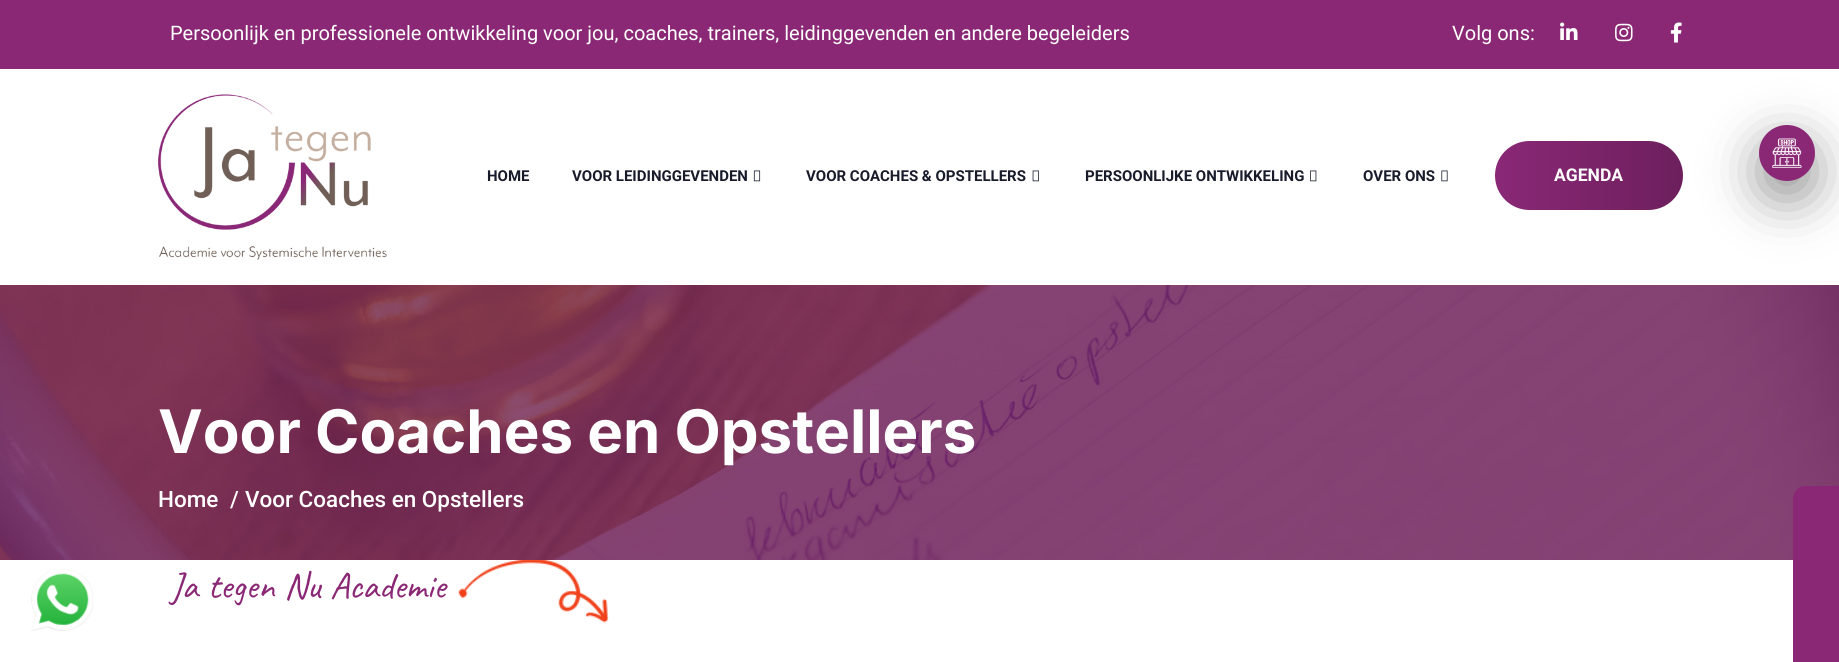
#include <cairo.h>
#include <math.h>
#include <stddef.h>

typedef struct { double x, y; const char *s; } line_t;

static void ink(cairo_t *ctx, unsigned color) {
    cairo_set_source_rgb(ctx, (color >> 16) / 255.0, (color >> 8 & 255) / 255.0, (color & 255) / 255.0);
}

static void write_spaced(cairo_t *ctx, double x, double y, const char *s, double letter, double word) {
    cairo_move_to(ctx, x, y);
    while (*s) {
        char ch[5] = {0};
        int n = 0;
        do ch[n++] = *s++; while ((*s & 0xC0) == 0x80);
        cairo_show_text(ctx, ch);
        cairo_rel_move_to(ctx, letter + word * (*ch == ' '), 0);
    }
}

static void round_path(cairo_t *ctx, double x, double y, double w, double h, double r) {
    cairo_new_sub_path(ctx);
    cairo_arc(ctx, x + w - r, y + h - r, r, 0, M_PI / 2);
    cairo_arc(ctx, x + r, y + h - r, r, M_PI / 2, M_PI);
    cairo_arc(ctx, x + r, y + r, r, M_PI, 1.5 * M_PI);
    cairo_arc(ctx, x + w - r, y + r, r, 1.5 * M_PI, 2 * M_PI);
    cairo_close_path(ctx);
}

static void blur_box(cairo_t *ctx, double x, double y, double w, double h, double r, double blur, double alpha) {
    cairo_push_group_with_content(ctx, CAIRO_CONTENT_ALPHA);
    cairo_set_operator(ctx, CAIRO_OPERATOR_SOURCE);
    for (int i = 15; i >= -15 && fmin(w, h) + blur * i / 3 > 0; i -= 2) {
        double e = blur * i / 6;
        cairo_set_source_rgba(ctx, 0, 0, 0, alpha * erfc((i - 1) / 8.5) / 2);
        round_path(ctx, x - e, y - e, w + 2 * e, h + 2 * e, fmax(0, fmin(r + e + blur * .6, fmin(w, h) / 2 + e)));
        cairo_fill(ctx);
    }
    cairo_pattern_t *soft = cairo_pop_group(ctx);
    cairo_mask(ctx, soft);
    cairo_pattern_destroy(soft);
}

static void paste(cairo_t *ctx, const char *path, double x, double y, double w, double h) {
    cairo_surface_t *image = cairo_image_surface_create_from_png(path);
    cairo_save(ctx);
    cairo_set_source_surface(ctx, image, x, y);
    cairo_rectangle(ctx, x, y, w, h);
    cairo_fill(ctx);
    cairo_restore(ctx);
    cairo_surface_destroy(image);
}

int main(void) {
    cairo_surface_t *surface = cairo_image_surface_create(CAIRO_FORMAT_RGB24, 1839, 662);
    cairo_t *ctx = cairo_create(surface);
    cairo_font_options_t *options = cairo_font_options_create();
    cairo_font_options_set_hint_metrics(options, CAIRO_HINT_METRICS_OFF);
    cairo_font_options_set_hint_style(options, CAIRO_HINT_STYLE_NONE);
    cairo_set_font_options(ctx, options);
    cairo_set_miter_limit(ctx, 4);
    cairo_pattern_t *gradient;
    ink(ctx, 0xFFFFFF);
    cairo_paint(ctx);
    ink(ctx, 0x8A2876);
    cairo_rectangle(ctx, 0, 0, 1839, 69);
    cairo_fill(ctx);
    cairo_select_font_face(ctx, "Roboto", CAIRO_FONT_SLANT_NORMAL, CAIRO_FONT_WEIGHT_NORMAL);
    cairo_set_font_size(ctx, 20);
    ink(ctx, 0xFFFFFF);
    cairo_move_to(ctx, 170, 40);
    cairo_show_text(ctx, "Persoonlijk en professionele ontwikkeling voor jou, coaches, trainers, leidinggevenden en andere begeleiders");
    cairo_move_to(ctx, 1452, 40);
    cairo_show_text(ctx, "Volg ons:");
    paste(ctx, "media/1.png", 1560, 22, 18, 18);
    paste(ctx, "media/2.png", 1615, 23, 18, 19);
    paste(ctx, "media/3.png", 1670, 22, 12, 21);
    paste(ctx, "media/4.png", 158, 94, 229, 166);
    cairo_select_font_face(ctx, "Roboto", CAIRO_FONT_SLANT_NORMAL, CAIRO_FONT_WEIGHT_BOLD);
    cairo_set_font_size(ctx, 15);
    ink(ctx, 0x171B2A);
    cairo_move_to(ctx, 487, 181);
    cairo_show_text(ctx, "HOME");
    cairo_move_to(ctx, 572, 181);
    cairo_show_text(ctx, "VOOR LEIDINGGEVENDEN");
    paste(ctx, "media/5.png", 753, 170, 8, 12);
    cairo_move_to(ctx, 806, 181);
    cairo_show_text(ctx, "VOOR COACHES & OPSTELLERS");
    paste(ctx, "media/6.png", 1032, 170, 7, 12);
    cairo_move_to(ctx, 1085, 181);
    cairo_show_text(ctx, "PERSOONLIJKE ONTWIKKELING");
    paste(ctx, "media/7.png", 1310, 170, 7, 12);
    cairo_move_to(ctx, 1363, 181);
    cairo_show_text(ctx, "OVER ONS");
    paste(ctx, "media/8.png", 1441, 170, 7, 12);
    gradient = cairo_pattern_create_linear(1495, 176, 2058, 176);
    cairo_pattern_add_color_stop_rgba(gradient, 0, 0.541, 0.157, 0.463, 1);
    cairo_pattern_add_color_stop_rgba(gradient, 0.33, 0.427, 0.122, 0.365, 1);
    cairo_pattern_add_color_stop_rgba(gradient, 0.67, 0.427, 0.122, 0.365, 1);
    cairo_pattern_add_color_stop_rgba(gradient, 1, 0.541, 0.157, 0.463, 1);
    cairo_set_source(ctx, gradient);
    cairo_pattern_destroy(gradient);
    round_path(ctx, 1495, 141, 188, 69, 34.5);
    cairo_fill(ctx);
    cairo_set_font_size(ctx, 17.5);
    ink(ctx, 0xFFFFFF);
    cairo_move_to(ctx, 1554, 181);
    cairo_show_text(ctx, "AGENDA");
    ink(ctx, 0x000000);
    blur_box(ctx, 1759, 143, 56, 56, 28, 26, 0.4);
    ink(ctx, 0x8A2876);
    cairo_arc(ctx, 1787, 153, 28, 0, 2 * M_PI);
    cairo_fill(ctx);
    paste(ctx, "media/9.png", 1772, 138, 30, 30);
    paste(ctx, "media/10.png", 0, 285, 1839, 275);
    cairo_select_font_face(ctx, "Inter", CAIRO_FONT_SLANT_NORMAL, CAIRO_FONT_WEIGHT_BOLD);
    cairo_set_font_size(ctx, 60);
    ink(ctx, 0xFFFFFF);
    cairo_move_to(ctx, 158, 453);
    cairo_show_text(ctx, "Voor Coaches en Opstellers");
    cairo_select_font_face(ctx, "Roboto Medium", CAIRO_FONT_SLANT_NORMAL, CAIRO_FONT_WEIGHT_NORMAL);
    cairo_set_font_size(ctx, 22.5);
    {
        static const line_t items[] = {
            {158, 507, "Home"},
            {230, 507, "/"},
            {245, 507, "Voor Coaches en Opstellers"},
        };
        for (size_t i = 0; i < sizeof items / sizeof *items; i++) {
            cairo_move_to(ctx, items[i].x, items[i].y);
            cairo_show_text(ctx, items[i].s);
        }
    }
    paste(ctx, "media/11.png", 31, 569, 63, 62);
    cairo_select_font_face(ctx, "Caveat", CAIRO_FONT_SLANT_NORMAL, CAIRO_FONT_WEIGHT_NORMAL);
    cairo_set_font_size(ctx, 37.5);
    ink(ctx, 0x8A2876);
    write_spaced(ctx, 170, 598, "Ja tegen Nu Academie", 0, 0.5);
    paste(ctx, "media/12.png", 458, 560, 151, 63);
    ink(ctx, 0x8A2875);
    cairo_new_path(ctx);
    cairo_move_to(ctx, 1793, 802);
    cairo_line_to(ctx, 1793, 499);
    cairo_curve_to(ctx, 1793, 492, 1798, 486, 1805, 486);
    cairo_line_to(ctx, 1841, 486);
    cairo_line_to(ctx, 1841, 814);
    cairo_line_to(ctx, 1805, 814);
    cairo_curve_to(ctx, 1798, 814, 1793, 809, 1793, 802);
    cairo_close_path(ctx);
    cairo_fill(ctx);
    cairo_surface_write_to_png(surface, "image.png");
    cairo_font_options_destroy(options);
    cairo_destroy(ctx);
    cairo_surface_destroy(surface);
    return 0;
}
